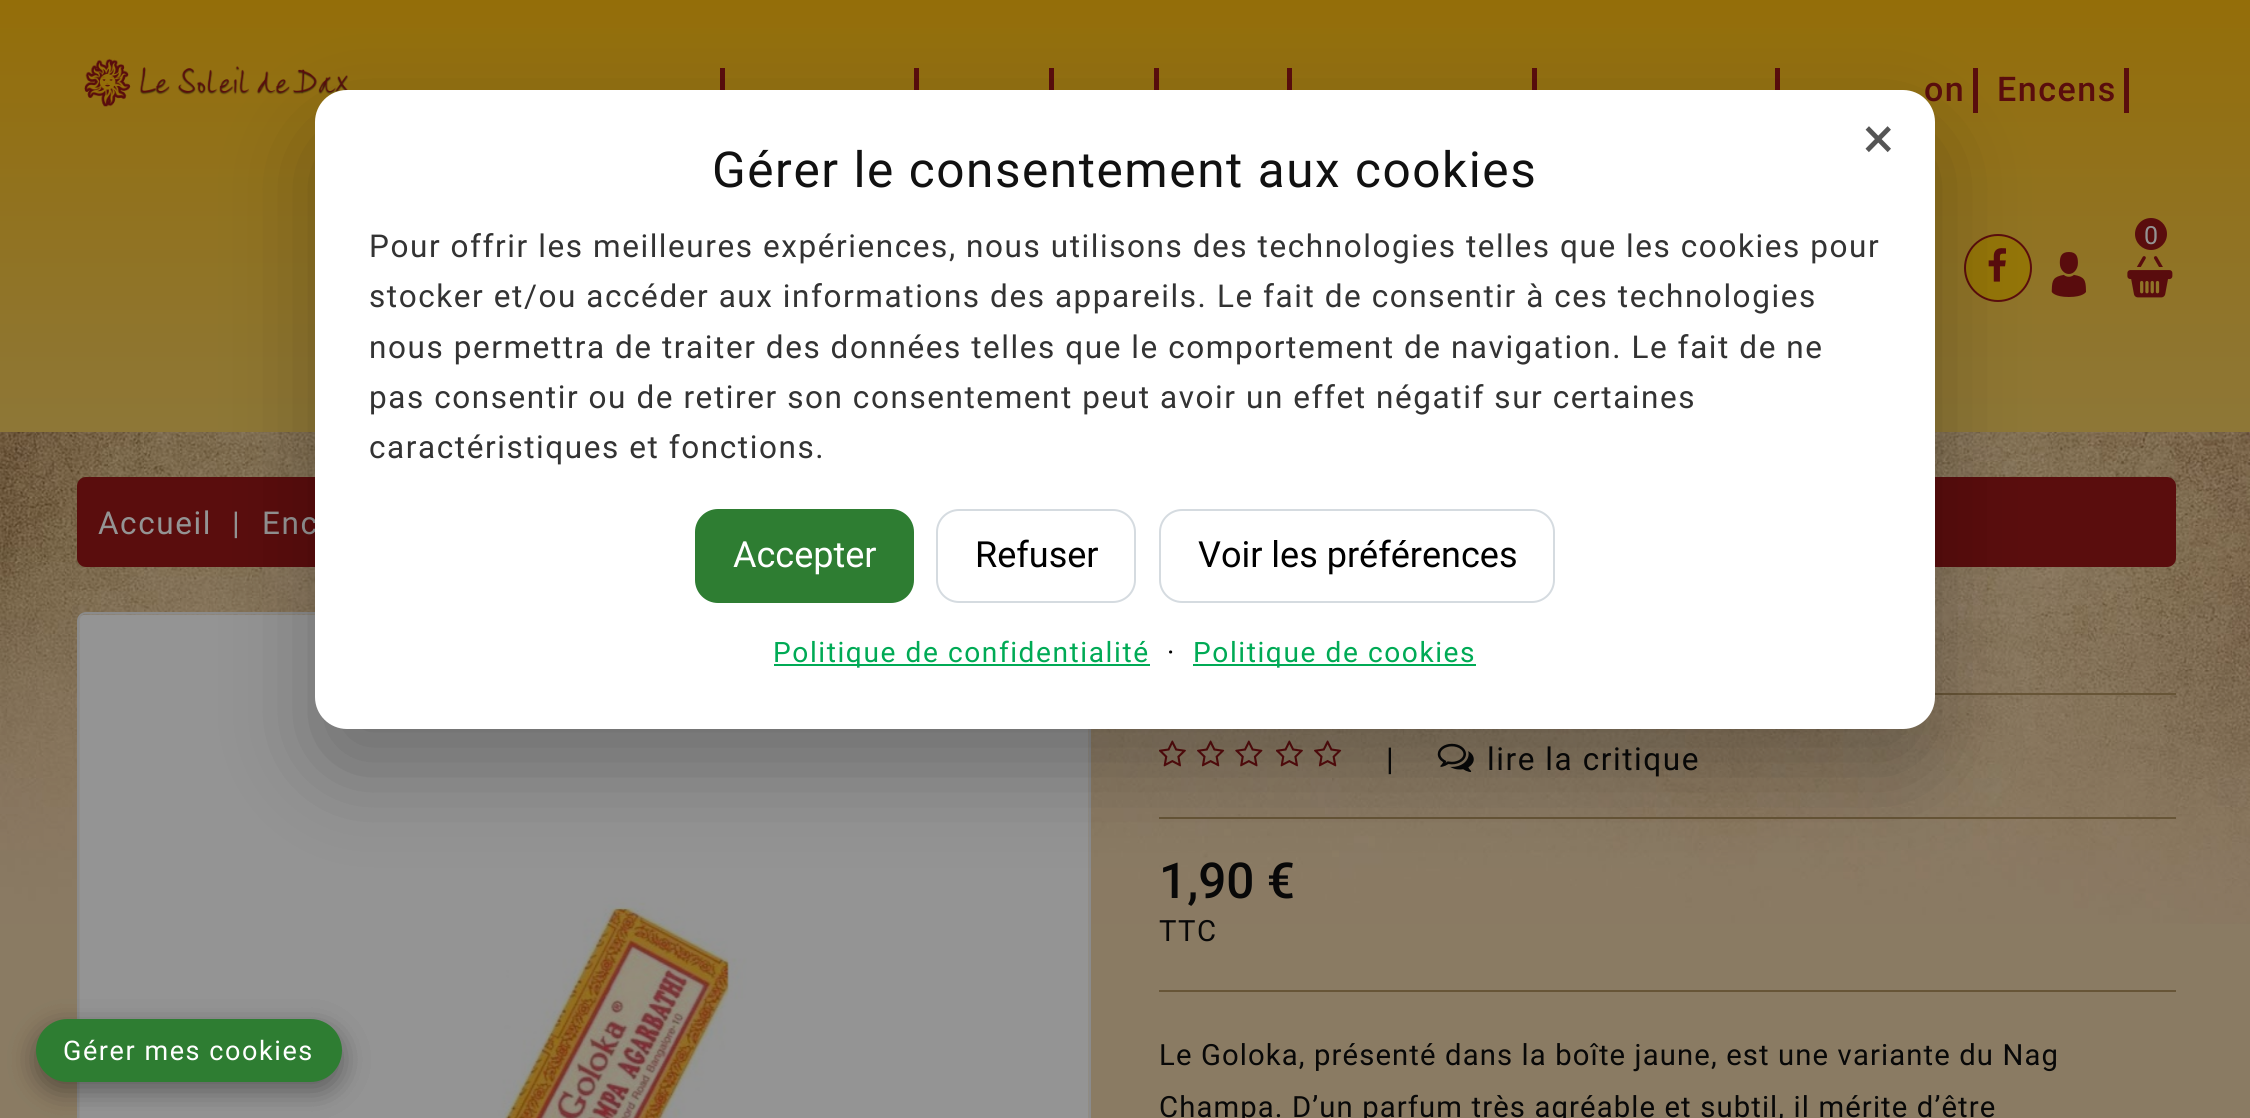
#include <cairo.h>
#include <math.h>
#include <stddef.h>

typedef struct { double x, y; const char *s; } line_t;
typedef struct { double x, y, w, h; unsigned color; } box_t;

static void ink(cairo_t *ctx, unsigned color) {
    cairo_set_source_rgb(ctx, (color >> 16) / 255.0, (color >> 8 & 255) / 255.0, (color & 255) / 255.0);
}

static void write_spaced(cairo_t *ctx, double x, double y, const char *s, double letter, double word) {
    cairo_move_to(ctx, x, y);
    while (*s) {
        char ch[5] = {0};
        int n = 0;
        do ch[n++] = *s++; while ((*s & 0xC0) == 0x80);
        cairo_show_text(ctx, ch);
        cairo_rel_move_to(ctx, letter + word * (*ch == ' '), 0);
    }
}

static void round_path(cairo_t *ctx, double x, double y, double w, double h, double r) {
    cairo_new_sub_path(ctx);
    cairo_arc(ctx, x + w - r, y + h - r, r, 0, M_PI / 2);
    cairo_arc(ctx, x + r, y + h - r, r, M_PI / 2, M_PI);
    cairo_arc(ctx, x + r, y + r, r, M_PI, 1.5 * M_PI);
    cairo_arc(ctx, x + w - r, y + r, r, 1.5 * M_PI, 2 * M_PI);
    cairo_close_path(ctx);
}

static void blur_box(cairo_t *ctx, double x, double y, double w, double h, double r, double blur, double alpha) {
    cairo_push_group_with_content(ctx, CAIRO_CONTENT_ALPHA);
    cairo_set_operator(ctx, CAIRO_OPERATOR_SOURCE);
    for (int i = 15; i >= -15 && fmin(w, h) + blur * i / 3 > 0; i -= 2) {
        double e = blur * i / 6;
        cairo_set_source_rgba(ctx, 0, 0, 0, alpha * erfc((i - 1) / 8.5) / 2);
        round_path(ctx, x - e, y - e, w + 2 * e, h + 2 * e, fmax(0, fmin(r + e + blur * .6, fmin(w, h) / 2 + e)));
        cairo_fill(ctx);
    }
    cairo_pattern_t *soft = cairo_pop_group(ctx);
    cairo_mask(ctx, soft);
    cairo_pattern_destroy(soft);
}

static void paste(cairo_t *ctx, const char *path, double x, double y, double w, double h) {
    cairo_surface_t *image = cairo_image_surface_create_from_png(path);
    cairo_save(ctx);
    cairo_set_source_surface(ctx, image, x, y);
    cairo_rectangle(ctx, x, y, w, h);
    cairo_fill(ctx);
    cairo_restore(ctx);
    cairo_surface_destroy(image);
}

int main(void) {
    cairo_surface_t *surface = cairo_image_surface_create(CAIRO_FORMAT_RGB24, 2250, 1118);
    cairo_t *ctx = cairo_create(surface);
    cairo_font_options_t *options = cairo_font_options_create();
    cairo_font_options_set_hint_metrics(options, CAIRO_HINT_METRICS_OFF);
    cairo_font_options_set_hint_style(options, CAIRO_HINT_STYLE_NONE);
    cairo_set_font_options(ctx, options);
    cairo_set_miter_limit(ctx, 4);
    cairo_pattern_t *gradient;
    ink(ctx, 0x8A7B63);
    cairo_paint(ctx);
    paste(ctx, "media/1.png", 0, 432, 2250, 492);
    gradient = cairo_pattern_create_linear(1125, 0, 1125, 432);
    cairo_pattern_add_color_stop_rgba(gradient, 0, 0.58, 0.431, 0.035, 1);
    cairo_pattern_add_color_stop_rgba(gradient, 1, 0.557, 0.467, 0.216, 1);
    cairo_set_source(ctx, gradient);
    cairo_pattern_destroy(gradient);
    cairo_rectangle(ctx, 0, 0, 2250, 432);
    cairo_fill(ctx);
    paste(ctx, "media/2.png", 84, 58, 264, 49);
    {
        static const box_t items[] = {
            {720, 68, 5, 22, 0x5A0D0D},
            {914, 68, 5, 22, 0x5A0D0D},
            {1049, 68, 5, 22, 0x5A0D0D},
            {1154, 68, 5, 22, 0x5A0D0D},
            {1287, 68, 5, 22, 0x5A0D0D},
            {1532, 68, 5, 22, 0x5A0D0D},
            {1775, 68, 5, 22, 0x5A0D0D},
            {1973, 68, 5, 45, 0x5A0D0D},
        };
        for (size_t i = 0; i < sizeof items / sizeof *items; i++) {
            ink(ctx, items[i].color);
            cairo_rectangle(ctx, items[i].x, items[i].y, items[i].w, items[i].h);
            cairo_fill(ctx);
        }
    }
    cairo_select_font_face(ctx, "Roboto Medium", CAIRO_FONT_SLANT_NORMAL, CAIRO_FONT_WEIGHT_NORMAL);
    cairo_set_font_size(ctx, 34);
    write_spaced(ctx, 1924, 101, "on", 1.57, 0);
    cairo_rectangle(ctx, 2124, 68, 5, 45);
    cairo_fill(ctx);
    write_spaced(ctx, 1997, 101, "Encens", 1.57, 0);
    ink(ctx, 0x947508);
    cairo_new_path(ctx);
    cairo_arc(ctx, 1998, 268, 33, 0, 2 * M_PI);
    cairo_fill_preserve(ctx);
    ink(ctx, 0x5A0D0D);
    cairo_stroke(ctx);
    paste(ctx, "media/3.png", 1988, 248, 18, 34);
    paste(ctx, "media/4.png", 2051, 252, 35, 45);
    cairo_arc(ctx, 2151, 234, 16, 0, 2 * M_PI);
    cairo_fill(ctx);
    cairo_select_font_face(ctx, "Roboto", CAIRO_FONT_SLANT_NORMAL, CAIRO_FONT_WEIGHT_NORMAL);
    cairo_set_font_size(ctx, 25);
    ink(ctx, 0x949494);
    write_spaced(ctx, 2144, 244, "0", 1.57, 0);
    paste(ctx, "media/5.png", 2127, 256, 46, 42);
    ink(ctx, 0x5A0D0D);
    round_path(ctx, 77, 477, 2099, 90, 9);
    cairo_fill(ctx);
    cairo_set_font_size(ctx, 31.5);
    ink(ctx, 0x949494);
    {
        static const line_t items[] = {
            {98, 534, "Accueil"},
            {232, 534, "|"},
            {262, 534, "Enc"},
        };
        for (size_t i = 0; i < sizeof items / sizeof *items; i++) {
            write_spaced(ctx, items[i].x, items[i].y, items[i].s, 1.57, 0);
        }
    }
    round_path(ctx, 78, 613, 1012, 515, 8);
    ink(ctx, 0x8B8B8B);
    cairo_stroke(ctx);
    paste(ctx, "media/6.png", 79, 614, 1010, 504);
    ink(ctx, 0x675537);
    cairo_rectangle(ctx, 1935, 693, 241, 2);
    cairo_fill(ctx);
    paste(ctx, "media/7.png", 1159, 740, 27, 27);
    paste(ctx, "media/8.png", 1197, 740, 28, 27);
    paste(ctx, "media/9.png", 1235, 740, 28, 27);
    paste(ctx, "media/10.png", 1276, 740, 27, 27);
    paste(ctx, "media/11.png", 1314, 740, 28, 27);
    ink(ctx, 0x080808);
    write_spaced(ctx, 1386, 770, "|", 1.57, 0);
    paste(ctx, "media/12.png", 1437, 743, 37, 29);
    write_spaced(ctx, 1487, 770, "lire la critique", 1.57, 0);
    ink(ctx, 0x675537);
    cairo_rectangle(ctx, 1159, 817, 1017, 2);
    cairo_fill(ctx);
    cairo_rectangle(ctx, 1159, 990, 1017, 2);
    cairo_fill(ctx);
    cairo_select_font_face(ctx, "Roboto Medium", CAIRO_FONT_SLANT_NORMAL, CAIRO_FONT_WEIGHT_NORMAL);
    cairo_set_font_size(ctx, 49.5);
    ink(ctx, 0x080808);
    cairo_move_to(ctx, 1159, 898);
    cairo_show_text(ctx, "1,90 €");
    cairo_select_font_face(ctx, "Roboto", CAIRO_FONT_SLANT_NORMAL, CAIRO_FONT_WEIGHT_NORMAL);
    cairo_set_font_size(ctx, 29.25);
    write_spaced(ctx, 1159, 941, "TTC", 1.57, 0);
    write_spaced(ctx, 1159, 1065, "Le Goloka, présenté dans la boîte jaune, est une variante du Nag", 1.12, 0);
    write_spaced(ctx, 1159, 1117, "Champa. D’un parfum très agréable et subtil, il mérite d’être", 1.12, 0);
    ink(ctx, 0x000000);
    blur_box(ctx, 36, 1028, 306, 63, 31.5, 13.5, 0.2);
    blur_box(ctx, 36, 1028, 306, 63, 31.5, 13.5, 0.2);
    ink(ctx, 0x2E7D32);
    round_path(ctx, 36, 1019, 306, 63, 31.5);
    cairo_fill(ctx);
    cairo_set_font_size(ctx, 27);
    ink(ctx, 0xFFFFFF);
    write_spaced(ctx, 63, 1060, "Gérer mes cookies", 1.57, 0);
    ink(ctx, 0x000000);
    blur_box(ctx, 315, 131, 1620, 639, 32, 45, 0.25);
    ink(ctx, 0xFFFFFF);
    round_path(ctx, 315, 90, 1620, 639, 32);
    cairo_fill(ctx);
    cairo_set_font_size(ctx, 58);
    ink(ctx, 0x555555);
    cairo_move_to(ctx, 1863, 158);
    cairo_show_text(ctx, "×");
    cairo_set_font_size(ctx, 49.5);
    ink(ctx, 0x111111);
    write_spaced(ctx, 712, 187, "Gérer le consentement aux cookies", 1.57, 0);
    cairo_set_font_size(ctx, 31.5);
    ink(ctx, 0x333333);
    {
        static const line_t items[] = {
            {369, 257, "Pour offrir les meilleures expériences, nous utilisons des technologies telles que les cookies pour"},
            {369, 307, "stocker et/ou accéder aux informations des appareils. Le fait de consentir à ces technologies"},
            {369, 358, "nous permettra de traiter des données telles que le comportement de navigation. Le fait de ne"},
            {369, 408, "pas consentir ou de retirer son consentement peut avoir un effet négatif sur certaines"},
            {369, 458, "caractéristiques et fonctions."},
        };
        for (size_t i = 0; i < sizeof items / sizeof *items; i++) {
            write_spaced(ctx, items[i].x, items[i].y, items[i].s, 1.57, 0);
        }
    }
    ink(ctx, 0x2E7D32);
    round_path(ctx, 696, 510, 217, 92, 22);
    cairo_fill_preserve(ctx);
    cairo_stroke(ctx);
    cairo_set_font_size(ctx, 36);
    ink(ctx, 0xFFFFFF);
    cairo_move_to(ctx, 733, 567);
    cairo_show_text(ctx, "Accepter");
    round_path(ctx, 937, 510, 198, 92, 22);
    ink(ctx, 0xD5DBE0);
    cairo_stroke(ctx);
    ink(ctx, 0x000000);
    cairo_move_to(ctx, 975, 567);
    cairo_show_text(ctx, "Refuser");
    round_path(ctx, 1160, 510, 394, 92, 22);
    ink(ctx, 0xD5DBE0);
    cairo_stroke(ctx);
    ink(ctx, 0x000000);
    cairo_move_to(ctx, 1198, 567);
    cairo_show_text(ctx, "Voir les préférences");
    ink(ctx, 0x00AA55);
    cairo_rectangle(ctx, 774, 664, 376, 2);
    cairo_fill(ctx);
    cairo_set_font_size(ctx, 28.1);
    write_spaced(ctx, 773, 662, "Politique de confidentialité", 1.57, 0);
    ink(ctx, 0x000000);
    write_spaced(ctx, 1167, 662, "·", 1.57, 0);
    ink(ctx, 0x00AA55);
    cairo_rectangle(ctx, 1193, 664, 283, 2);
    cairo_fill(ctx);
    write_spaced(ctx, 1193, 662, "Politique de cookies", 1.57, 0);
    cairo_surface_write_to_png(surface, "image.png");
    cairo_font_options_destroy(options);
    cairo_destroy(ctx);
    cairo_surface_destroy(surface);
    return 0;
}
